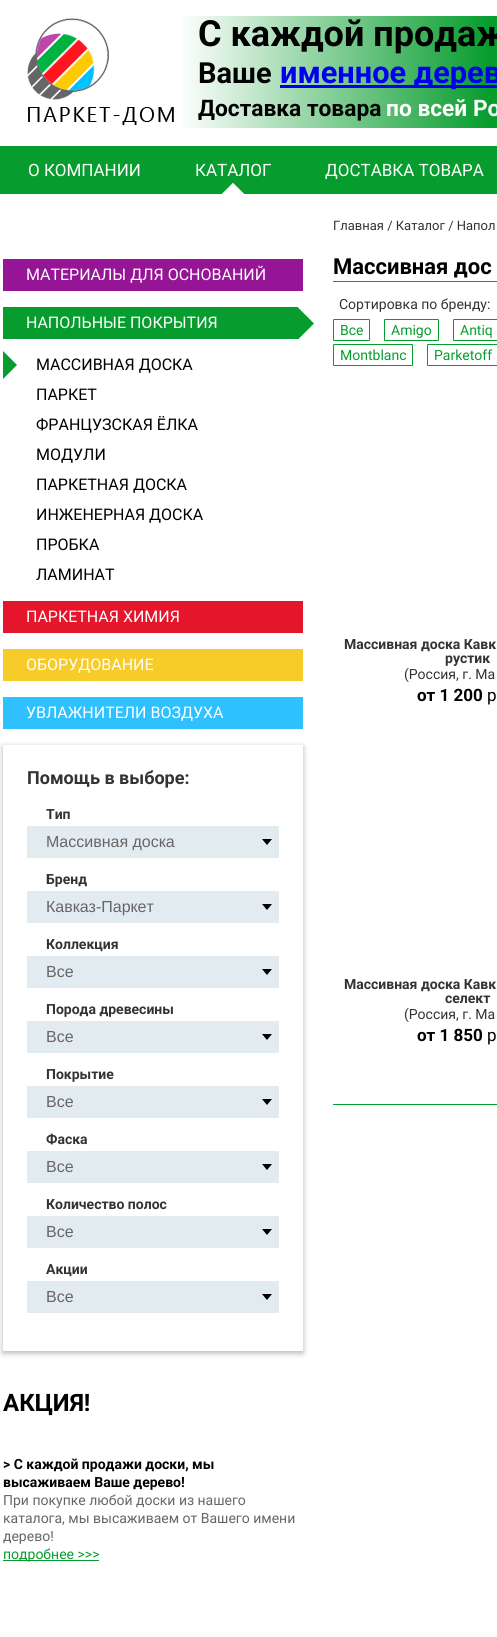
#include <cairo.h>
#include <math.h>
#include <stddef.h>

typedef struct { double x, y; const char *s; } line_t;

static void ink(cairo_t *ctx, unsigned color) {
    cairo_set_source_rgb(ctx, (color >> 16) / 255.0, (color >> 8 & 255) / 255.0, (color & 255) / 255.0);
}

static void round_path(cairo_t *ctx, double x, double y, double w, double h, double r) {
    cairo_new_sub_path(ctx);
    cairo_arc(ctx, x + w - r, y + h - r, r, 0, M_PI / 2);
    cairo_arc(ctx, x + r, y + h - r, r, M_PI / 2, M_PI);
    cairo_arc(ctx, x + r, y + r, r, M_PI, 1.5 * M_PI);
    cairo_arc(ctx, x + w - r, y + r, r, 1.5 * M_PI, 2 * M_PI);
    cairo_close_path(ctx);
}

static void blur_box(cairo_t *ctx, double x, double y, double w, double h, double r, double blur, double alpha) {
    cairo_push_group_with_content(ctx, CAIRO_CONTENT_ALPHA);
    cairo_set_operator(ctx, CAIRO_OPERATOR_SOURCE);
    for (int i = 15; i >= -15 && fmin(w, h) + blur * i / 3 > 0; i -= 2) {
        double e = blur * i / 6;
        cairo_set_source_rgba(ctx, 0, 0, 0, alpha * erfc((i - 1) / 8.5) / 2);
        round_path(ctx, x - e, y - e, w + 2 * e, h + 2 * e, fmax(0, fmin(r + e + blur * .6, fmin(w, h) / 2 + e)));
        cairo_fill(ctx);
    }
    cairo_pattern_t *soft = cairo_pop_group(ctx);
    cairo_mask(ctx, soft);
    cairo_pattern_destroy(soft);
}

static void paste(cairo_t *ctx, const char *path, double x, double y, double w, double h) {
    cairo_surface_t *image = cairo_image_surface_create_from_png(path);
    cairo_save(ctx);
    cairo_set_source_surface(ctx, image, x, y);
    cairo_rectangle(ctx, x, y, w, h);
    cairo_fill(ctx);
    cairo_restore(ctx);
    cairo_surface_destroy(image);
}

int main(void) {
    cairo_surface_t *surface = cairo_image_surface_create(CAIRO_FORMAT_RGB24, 497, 1637);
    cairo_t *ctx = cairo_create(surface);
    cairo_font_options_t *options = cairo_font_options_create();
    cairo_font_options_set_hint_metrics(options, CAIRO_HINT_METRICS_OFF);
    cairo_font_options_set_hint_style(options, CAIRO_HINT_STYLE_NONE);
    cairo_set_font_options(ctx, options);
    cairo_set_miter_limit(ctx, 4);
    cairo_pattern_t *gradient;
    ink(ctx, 0xFFFFFF);
    cairo_paint(ctx);
    paste(ctx, "media/1.png", 27, 18, 147, 107);
    gradient = cairo_pattern_create_linear(178, 72, 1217, 72);
    cairo_pattern_add_color_stop_rgba(gradient, 0, 1, 1, 1, 1);
    cairo_pattern_add_color_stop_rgba(gradient, 0.3, 0.027, 0.612, 0.18, 1);
    cairo_pattern_add_color_stop_rgba(gradient, 1, 0.027, 0.612, 0.18, 1);
    cairo_set_source(ctx, gradient);
    cairo_pattern_destroy(gradient);
    cairo_rectangle(ctx, 181, 16, 316, 112);
    cairo_fill(ctx);
    cairo_select_font_face(ctx, "Roboto", CAIRO_FONT_SLANT_NORMAL, CAIRO_FONT_WEIGHT_BOLD);
    cairo_set_font_size(ctx, 36);
    ink(ctx, 0x000000);
    cairo_move_to(ctx, 198, 46);
    cairo_show_text(ctx, "С каждой продаж");
    cairo_set_font_size(ctx, 29);
    cairo_move_to(ctx, 198, 83);
    cairo_show_text(ctx, "Ваше");
    ink(ctx, 0x0000EE);
    cairo_rectangle(ctx, 280, 85, 217, 3);
    cairo_fill(ctx);
    cairo_set_font_size(ctx, 30.75);
    cairo_move_to(ctx, 280, 83);
    cairo_show_text(ctx, "именное дерев");
    cairo_set_font_size(ctx, 22.75);
    ink(ctx, 0x000000);
    cairo_move_to(ctx, 198, 116);
    cairo_show_text(ctx, "Доставка товара");
    ink(ctx, 0xFFFFFF);
    cairo_move_to(ctx, 386, 116);
    cairo_show_text(ctx, "по всей Ро");
    ink(ctx, 0x079C2E);
    cairo_rectangle(ctx, 0, 146, 497, 48);
    cairo_fill(ctx);
    cairo_select_font_face(ctx, "Roboto", CAIRO_FONT_SLANT_NORMAL, CAIRO_FONT_WEIGHT_NORMAL);
    cairo_set_font_size(ctx, 17);
    ink(ctx, 0xFFFFFF);
    cairo_move_to(ctx, 28, 176);
    cairo_show_text(ctx, "О КОМПАНИИ");
    paste(ctx, "media/2.png", 221, 182, 24, 12);
    cairo_move_to(ctx, 195, 176);
    cairo_show_text(ctx, "КАТАЛОГ");
    cairo_move_to(ctx, 325, 176);
    cairo_show_text(ctx, "ДОСТАВКА ТОВАРА");
    ink(ctx, 0x961597);
    cairo_rectangle(ctx, 3, 259, 300, 32);
    cairo_fill(ctx);
    cairo_set_font_size(ctx, 16);
    ink(ctx, 0xFFFFFF);
    cairo_move_to(ctx, 26, 280);
    cairo_show_text(ctx, "МАТЕРИАЛЫ ДЛЯ ОСНОВАНИЙ");
    ink(ctx, 0x079C2E);
    cairo_rectangle(ctx, 3, 307, 295, 32);
    cairo_fill(ctx);
    ink(ctx, 0xFFFFFF);
    cairo_move_to(ctx, 26, 328);
    cairo_show_text(ctx, "НАПОЛЬНЫЕ ПОКРЫТИЯ");
    cairo_save(ctx);
    cairo_rectangle(ctx, 295, 307, 20, 32);
    cairo_clip(ctx);
    ink(ctx, 0x079C2E);
    cairo_new_path(ctx);
    cairo_move_to(ctx, 296.5, 306);
    cairo_line_to(ctx, 314, 323.5);
    cairo_line_to(ctx, 296.5, 341);
    cairo_line_to(ctx, 279, 323.5);
    cairo_close_path(ctx);
    cairo_fill(ctx);
    cairo_restore(ctx);
    ink(ctx, 0x079C2E);
    cairo_new_path(ctx);
    cairo_move_to(ctx, 3, 379);
    cairo_line_to(ctx, 3, 351);
    cairo_line_to(ctx, 17, 365);
    cairo_close_path(ctx);
    cairo_fill(ctx);
    ink(ctx, 0x000000);
    {
        static const line_t items[] = {
            {36, 370, "МАССИВНАЯ ДОСКА"},
            {36, 400, "ПАРКЕТ"},
            {36, 430, "ФРАНЦУЗСКАЯ ЁЛКА"},
            {36, 460, "МОДУЛИ"},
            {36, 490, "ПАРКЕТНАЯ ДОСКА"},
            {36, 520, "ИНЖЕНЕРНАЯ ДОСКА"},
            {36, 550, "ПРОБКА"},
            {36, 580, "ЛАМИНАТ"},
        };
        for (size_t i = 0; i < sizeof items / sizeof *items; i++) {
            cairo_move_to(ctx, items[i].x, items[i].y);
            cairo_show_text(ctx, items[i].s);
        }
    }
    ink(ctx, 0xE5162C);
    cairo_rectangle(ctx, 3, 601, 300, 32);
    cairo_fill(ctx);
    ink(ctx, 0xFFFFFF);
    cairo_move_to(ctx, 26, 622);
    cairo_show_text(ctx, "ПАРКЕТНАЯ ХИМИЯ");
    ink(ctx, 0xF7CB28);
    cairo_rectangle(ctx, 3, 649, 300, 32);
    cairo_fill(ctx);
    ink(ctx, 0xFFFFFF);
    cairo_move_to(ctx, 26, 670);
    cairo_show_text(ctx, "ОБОРУДОВАНИЕ");
    ink(ctx, 0x2FC0FF);
    cairo_rectangle(ctx, 3, 697, 300, 32);
    cairo_fill(ctx);
    ink(ctx, 0xFFFFFF);
    cairo_move_to(ctx, 26, 718);
    cairo_show_text(ctx, "УВЛАЖНИТЕЛИ ВОЗДУХА");
    cairo_save(ctx);
    cairo_set_fill_rule(ctx, CAIRO_FILL_RULE_EVEN_ODD);
    cairo_new_path(ctx);
    cairo_move_to(ctx, 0, 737);
    cairo_line_to(ctx, 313, 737);
    cairo_line_to(ctx, 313, 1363);
    cairo_line_to(ctx, 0, 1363);
    cairo_close_path(ctx);
    cairo_move_to(ctx, 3, 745);
    cairo_line_to(ctx, 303, 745);
    cairo_line_to(ctx, 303, 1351);
    cairo_line_to(ctx, 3, 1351);
    cairo_close_path(ctx);
    cairo_clip(ctx);
    ink(ctx, 0x000000);
    blur_box(ctx, 3, 747, 300, 606, 0, 3, 0.3);
    cairo_restore(ctx);
    cairo_select_font_face(ctx, "Roboto", CAIRO_FONT_SLANT_NORMAL, CAIRO_FONT_WEIGHT_BOLD);
    cairo_set_font_size(ctx, 18);
    ink(ctx, 0x333333);
    cairo_move_to(ctx, 27, 784);
    cairo_show_text(ctx, "Помощь в выборе:");
    cairo_set_font_size(ctx, 14);
    cairo_move_to(ctx, 46, 819);
    cairo_show_text(ctx, "Тип");
    ink(ctx, 0xE1EBF0);
    cairo_rectangle(ctx, 27, 826, 252, 32);
    cairo_fill(ctx);
    paste(ctx, "media/3.png", 262, 839, 10, 6);
    cairo_select_font_face(ctx, "Liberation Sans", CAIRO_FONT_SLANT_NORMAL, CAIRO_FONT_WEIGHT_NORMAL);
    cairo_set_font_size(ctx, 16);
    ink(ctx, 0x666666);
    cairo_move_to(ctx, 46, 847);
    cairo_show_text(ctx, "Массивная доска");
    cairo_select_font_face(ctx, "Roboto", CAIRO_FONT_SLANT_NORMAL, CAIRO_FONT_WEIGHT_BOLD);
    cairo_set_font_size(ctx, 14);
    ink(ctx, 0x333333);
    cairo_move_to(ctx, 46, 884);
    cairo_show_text(ctx, "Бренд");
    ink(ctx, 0xE1EBF0);
    cairo_rectangle(ctx, 27, 891, 252, 32);
    cairo_fill(ctx);
    paste(ctx, "media/3.png", 262, 904, 10, 6);
    cairo_select_font_face(ctx, "Liberation Sans", CAIRO_FONT_SLANT_NORMAL, CAIRO_FONT_WEIGHT_NORMAL);
    cairo_set_font_size(ctx, 16);
    ink(ctx, 0x666666);
    cairo_move_to(ctx, 46, 912);
    cairo_show_text(ctx, "Кавказ-Паркет");
    cairo_select_font_face(ctx, "Roboto", CAIRO_FONT_SLANT_NORMAL, CAIRO_FONT_WEIGHT_BOLD);
    cairo_set_font_size(ctx, 14);
    ink(ctx, 0x333333);
    cairo_move_to(ctx, 46, 949);
    cairo_show_text(ctx, "Коллекция");
    ink(ctx, 0xE1EBF0);
    cairo_rectangle(ctx, 27, 956, 252, 32);
    cairo_fill(ctx);
    paste(ctx, "media/3.png", 262, 969, 10, 6);
    cairo_select_font_face(ctx, "Liberation Sans", CAIRO_FONT_SLANT_NORMAL, CAIRO_FONT_WEIGHT_NORMAL);
    cairo_set_font_size(ctx, 16);
    ink(ctx, 0x666666);
    cairo_move_to(ctx, 46, 977);
    cairo_show_text(ctx, "Все");
    cairo_select_font_face(ctx, "Roboto", CAIRO_FONT_SLANT_NORMAL, CAIRO_FONT_WEIGHT_BOLD);
    cairo_set_font_size(ctx, 14);
    ink(ctx, 0x333333);
    cairo_move_to(ctx, 46, 1014);
    cairo_show_text(ctx, "Порода древесины");
    ink(ctx, 0xE1EBF0);
    cairo_rectangle(ctx, 27, 1021, 252, 32);
    cairo_fill(ctx);
    paste(ctx, "media/3.png", 262, 1034, 10, 6);
    cairo_select_font_face(ctx, "Liberation Sans", CAIRO_FONT_SLANT_NORMAL, CAIRO_FONT_WEIGHT_NORMAL);
    cairo_set_font_size(ctx, 16);
    ink(ctx, 0x666666);
    cairo_move_to(ctx, 46, 1042);
    cairo_show_text(ctx, "Все");
    cairo_select_font_face(ctx, "Roboto", CAIRO_FONT_SLANT_NORMAL, CAIRO_FONT_WEIGHT_BOLD);
    cairo_set_font_size(ctx, 14);
    ink(ctx, 0x333333);
    cairo_move_to(ctx, 46, 1079);
    cairo_show_text(ctx, "Покрытие");
    ink(ctx, 0xE1EBF0);
    cairo_rectangle(ctx, 27, 1086, 252, 32);
    cairo_fill(ctx);
    paste(ctx, "media/3.png", 262, 1099, 10, 6);
    cairo_select_font_face(ctx, "Liberation Sans", CAIRO_FONT_SLANT_NORMAL, CAIRO_FONT_WEIGHT_NORMAL);
    cairo_set_font_size(ctx, 16);
    ink(ctx, 0x666666);
    cairo_move_to(ctx, 46, 1107);
    cairo_show_text(ctx, "Все");
    cairo_select_font_face(ctx, "Roboto", CAIRO_FONT_SLANT_NORMAL, CAIRO_FONT_WEIGHT_BOLD);
    cairo_set_font_size(ctx, 14);
    ink(ctx, 0x333333);
    cairo_move_to(ctx, 46, 1144);
    cairo_show_text(ctx, "Фаска");
    ink(ctx, 0xE1EBF0);
    cairo_rectangle(ctx, 27, 1151, 252, 32);
    cairo_fill(ctx);
    paste(ctx, "media/3.png", 262, 1164, 10, 6);
    cairo_select_font_face(ctx, "Liberation Sans", CAIRO_FONT_SLANT_NORMAL, CAIRO_FONT_WEIGHT_NORMAL);
    cairo_set_font_size(ctx, 16);
    ink(ctx, 0x666666);
    cairo_move_to(ctx, 46, 1172);
    cairo_show_text(ctx, "Все");
    cairo_select_font_face(ctx, "Roboto", CAIRO_FONT_SLANT_NORMAL, CAIRO_FONT_WEIGHT_BOLD);
    cairo_set_font_size(ctx, 14);
    ink(ctx, 0x333333);
    cairo_move_to(ctx, 46, 1209);
    cairo_show_text(ctx, "Количество полос");
    ink(ctx, 0xE1EBF0);
    cairo_rectangle(ctx, 27, 1216, 252, 32);
    cairo_fill(ctx);
    paste(ctx, "media/3.png", 262, 1229, 10, 6);
    cairo_select_font_face(ctx, "Liberation Sans", CAIRO_FONT_SLANT_NORMAL, CAIRO_FONT_WEIGHT_NORMAL);
    cairo_set_font_size(ctx, 16);
    ink(ctx, 0x666666);
    cairo_move_to(ctx, 46, 1237);
    cairo_show_text(ctx, "Все");
    cairo_select_font_face(ctx, "Roboto", CAIRO_FONT_SLANT_NORMAL, CAIRO_FONT_WEIGHT_BOLD);
    cairo_set_font_size(ctx, 14);
    ink(ctx, 0x333333);
    cairo_move_to(ctx, 46, 1274);
    cairo_show_text(ctx, "Акции");
    ink(ctx, 0xE1EBF0);
    cairo_rectangle(ctx, 27, 1281, 252, 32);
    cairo_fill(ctx);
    paste(ctx, "media/3.png", 262, 1294, 10, 6);
    cairo_select_font_face(ctx, "Liberation Sans", CAIRO_FONT_SLANT_NORMAL, CAIRO_FONT_WEIGHT_NORMAL);
    cairo_set_font_size(ctx, 16);
    ink(ctx, 0x666666);
    cairo_move_to(ctx, 46, 1302);
    cairo_show_text(ctx, "Все");
    cairo_select_font_face(ctx, "Roboto", CAIRO_FONT_SLANT_NORMAL, CAIRO_FONT_WEIGHT_BOLD);
    cairo_set_font_size(ctx, 24);
    ink(ctx, 0x000000);
    cairo_move_to(ctx, 3, 1411);
    cairo_show_text(ctx, "АКЦИЯ!");
    cairo_set_font_size(ctx, 14);
    cairo_move_to(ctx, 3, 1469);
    cairo_show_text(ctx, "> С каждой продажи доски, мы");
    cairo_move_to(ctx, 3, 1487);
    cairo_show_text(ctx, "высаживаем Ваше дерево!");
    cairo_select_font_face(ctx, "Roboto", CAIRO_FONT_SLANT_NORMAL, CAIRO_FONT_WEIGHT_NORMAL);
    ink(ctx, 0x666666);
    {
        static const line_t items[] = {
            {3, 1505, "При покупке любой доски из нашего"},
            {3, 1523, "каталога, мы высаживаем от Вашего имени"},
            {3, 1541, "дерево!"},
        };
        for (size_t i = 0; i < sizeof items / sizeof *items; i++) {
            cairo_move_to(ctx, items[i].x, items[i].y);
            cairo_show_text(ctx, items[i].s);
        }
    }
    ink(ctx, 0x079C2E);
    cairo_rectangle(ctx, 3, 1560, 96, 1);
    cairo_fill(ctx);
    cairo_move_to(ctx, 3, 1559);
    cairo_show_text(ctx, "подробнее >>>");
    cairo_set_font_size(ctx, 13);
    ink(ctx, 0x333333);
    cairo_move_to(ctx, 333, 230);
    cairo_show_text(ctx, "Главная / Каталог / Напол");
    ink(ctx, 0x079C2E);
    cairo_rectangle(ctx, 333, 281, 164, 1);
    cairo_fill(ctx);
    cairo_select_font_face(ctx, "Roboto", CAIRO_FONT_SLANT_NORMAL, CAIRO_FONT_WEIGHT_BOLD);
    cairo_set_font_size(ctx, 22);
    ink(ctx, 0x000000);
    cairo_move_to(ctx, 333, 274);
    cairo_show_text(ctx, "Массивная дос");
    cairo_select_font_face(ctx, "Roboto", CAIRO_FONT_SLANT_NORMAL, CAIRO_FONT_WEIGHT_NORMAL);
    cairo_set_font_size(ctx, 14);
    ink(ctx, 0x333333);
    cairo_move_to(ctx, 339, 309);
    cairo_show_text(ctx, "Сортировка по бренду:");
    round_path(ctx, 333.5, 319.5, 36, 21, 0.5);
    ink(ctx, 0x079C2E);
    cairo_set_line_width(ctx, 1);
    cairo_stroke(ctx);
    cairo_move_to(ctx, 340, 335);
    cairo_show_text(ctx, "Все");
    round_path(ctx, 384.5, 319.5, 54, 21, 0.5);
    cairo_stroke(ctx);
    cairo_move_to(ctx, 391, 335);
    cairo_show_text(ctx, "Amigo");
    round_path(ctx, 453.5, 319.5, 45, 21, 0.5);
    cairo_stroke(ctx);
    cairo_move_to(ctx, 460, 335);
    cairo_show_text(ctx, "Antiq");
    round_path(ctx, 333.5, 344.5, 79, 21, 0.5);
    cairo_stroke(ctx);
    cairo_move_to(ctx, 340, 360);
    cairo_show_text(ctx, "Montblanc");
    round_path(ctx, 427.5, 344.5, 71, 21, 0.5);
    cairo_stroke(ctx);
    cairo_move_to(ctx, 434, 360);
    cairo_show_text(ctx, "Parketoff");
    cairo_select_font_face(ctx, "Roboto", CAIRO_FONT_SLANT_NORMAL, CAIRO_FONT_WEIGHT_BOLD);
    ink(ctx, 0x333333);
    cairo_move_to(ctx, 344, 649);
    cairo_show_text(ctx, "Массивная доска Кавк");
    cairo_move_to(ctx, 445, 663);
    cairo_show_text(ctx, "рустик");
    cairo_select_font_face(ctx, "Roboto", CAIRO_FONT_SLANT_NORMAL, CAIRO_FONT_WEIGHT_NORMAL);
    cairo_move_to(ctx, 404, 679);
    cairo_show_text(ctx, "(Россия, г. Ма");
    cairo_select_font_face(ctx, "Roboto", CAIRO_FONT_SLANT_NORMAL, CAIRO_FONT_WEIGHT_BOLD);
    cairo_set_font_size(ctx, 17);
    ink(ctx, 0x000000);
    cairo_move_to(ctx, 417, 701);
    cairo_show_text(ctx, "от 1 200");
    cairo_select_font_face(ctx, "Roboto", CAIRO_FONT_SLANT_NORMAL, CAIRO_FONT_WEIGHT_NORMAL);
    cairo_move_to(ctx, 487, 701);
    cairo_show_text(ctx, "р");
    cairo_select_font_face(ctx, "Roboto", CAIRO_FONT_SLANT_NORMAL, CAIRO_FONT_WEIGHT_BOLD);
    cairo_set_font_size(ctx, 14);
    ink(ctx, 0x333333);
    cairo_move_to(ctx, 344, 989);
    cairo_show_text(ctx, "Массивная доска Кавк");
    cairo_move_to(ctx, 445, 1003);
    cairo_show_text(ctx, "селект");
    cairo_select_font_face(ctx, "Roboto", CAIRO_FONT_SLANT_NORMAL, CAIRO_FONT_WEIGHT_NORMAL);
    cairo_move_to(ctx, 404, 1019);
    cairo_show_text(ctx, "(Россия, г. Ма");
    cairo_select_font_face(ctx, "Roboto", CAIRO_FONT_SLANT_NORMAL, CAIRO_FONT_WEIGHT_BOLD);
    cairo_set_font_size(ctx, 17);
    ink(ctx, 0x000000);
    cairo_move_to(ctx, 417, 1041);
    cairo_show_text(ctx, "от 1 850");
    cairo_select_font_face(ctx, "Roboto", CAIRO_FONT_SLANT_NORMAL, CAIRO_FONT_WEIGHT_NORMAL);
    cairo_move_to(ctx, 487, 1041);
    cairo_show_text(ctx, "р");
    ink(ctx, 0x079C2E);
    cairo_rectangle(ctx, 333, 1104, 164, 1);
    cairo_fill(ctx);
    cairo_surface_write_to_png(surface, "image.png");
    cairo_font_options_destroy(options);
    cairo_destroy(ctx);
    cairo_surface_destroy(surface);
    return 0;
}
